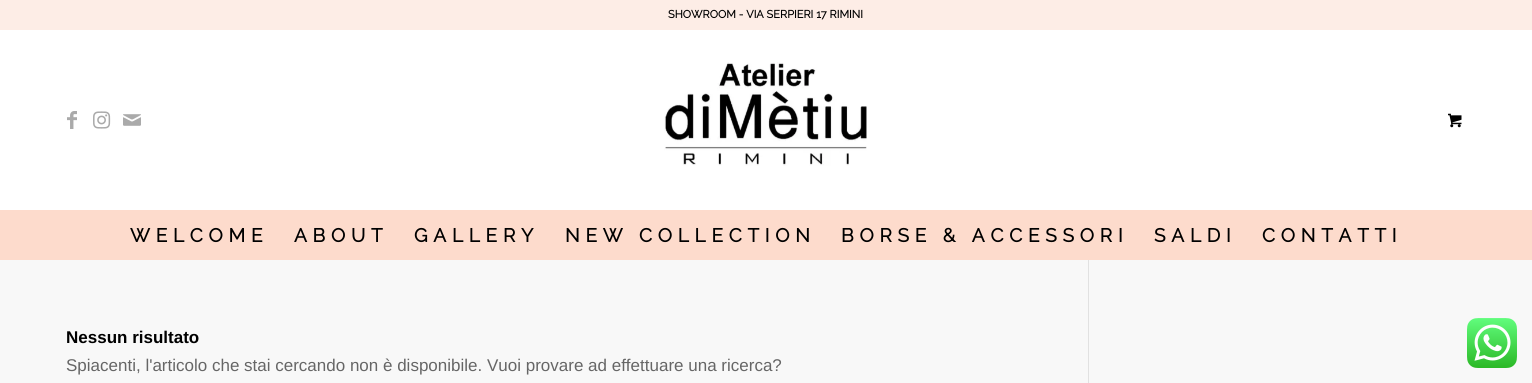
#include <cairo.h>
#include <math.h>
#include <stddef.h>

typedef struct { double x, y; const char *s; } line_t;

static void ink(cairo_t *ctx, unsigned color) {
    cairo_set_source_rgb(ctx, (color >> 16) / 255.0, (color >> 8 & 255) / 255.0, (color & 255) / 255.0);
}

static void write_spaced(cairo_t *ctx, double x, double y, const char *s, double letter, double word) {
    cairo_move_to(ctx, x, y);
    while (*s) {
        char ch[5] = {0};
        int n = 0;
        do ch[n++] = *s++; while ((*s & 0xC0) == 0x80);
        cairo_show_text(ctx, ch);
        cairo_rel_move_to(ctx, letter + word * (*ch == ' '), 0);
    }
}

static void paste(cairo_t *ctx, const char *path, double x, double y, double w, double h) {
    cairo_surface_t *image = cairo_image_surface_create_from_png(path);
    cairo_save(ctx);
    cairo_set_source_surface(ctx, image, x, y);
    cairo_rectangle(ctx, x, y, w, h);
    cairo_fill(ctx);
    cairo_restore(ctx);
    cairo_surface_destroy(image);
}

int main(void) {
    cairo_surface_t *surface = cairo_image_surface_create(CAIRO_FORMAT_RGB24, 1532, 383);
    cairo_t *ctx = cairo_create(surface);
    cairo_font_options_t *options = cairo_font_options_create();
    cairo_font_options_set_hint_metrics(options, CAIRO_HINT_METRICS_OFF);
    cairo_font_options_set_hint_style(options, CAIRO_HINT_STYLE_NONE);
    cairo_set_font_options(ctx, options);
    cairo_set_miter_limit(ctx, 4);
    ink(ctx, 0xFFFFFF);
    cairo_paint(ctx);
    ink(ctx, 0xFDEDE6);
    cairo_rectangle(ctx, 0, 0, 1532, 30);
    cairo_fill(ctx);
    cairo_select_font_face(ctx, "Raleway", CAIRO_FONT_SLANT_NORMAL, CAIRO_FONT_WEIGHT_BOLD);
    cairo_set_font_size(ctx, 11);
    ink(ctx, 0x000000);
    cairo_move_to(ctx, 668, 18);
    cairo_show_text(ctx, "SHOWROOM - VIA SERPIERI 17 RIMINI");
    paste(ctx, "media/1.png", 67, 111, 10, 18);
    paste(ctx, "media/2.png", 93, 111, 18, 18);
    paste(ctx, "media/3.png", 123, 114, 18, 12);
    paste(ctx, "media/4.png", 664, 62, 203, 104);
    paste(ctx, "media/5.png", 1448, 113, 14, 15);
    ink(ctx, 0xFDDBCC);
    cairo_rectangle(ctx, 0, 210, 1532, 50);
    cairo_fill(ctx);
    cairo_set_font_size(ctx, 19);
    ink(ctx, 0x000000);
    {
        static const line_t items[] = {
            {130, 242, "WELCOME"},
            {294, 242, "ABOUT"},
            {414, 242, "GALLERY"},
            {565, 242, "NEW COLLECTION"},
            {841, 242, "BORSE & ACCESSORI"},
            {1154, 242, "SALDI"},
            {1262, 242, "CONTATTI"},
        };
        for (size_t i = 0; i < sizeof items / sizeof *items; i++) {
            write_spaced(ctx, items[i].x, items[i].y, items[i].s, 5.75, 0);
        }
    }
    ink(ctx, 0xF8F8F8);
    cairo_rectangle(ctx, 0, 260, 1532, 123);
    cairo_fill(ctx);
    ink(ctx, 0xE1E1E1);
    cairo_rectangle(ctx, 1088, 260, 1, 123);
    cairo_fill(ctx);
    cairo_select_font_face(ctx, "Liberation Sans", CAIRO_FONT_SLANT_NORMAL, CAIRO_FONT_WEIGHT_BOLD);
    cairo_set_font_size(ctx, 17);
    ink(ctx, 0x000000);
    cairo_move_to(ctx, 66, 343);
    cairo_show_text(ctx, "Nessun risultato");
    cairo_select_font_face(ctx, "Liberation Sans", CAIRO_FONT_SLANT_NORMAL, CAIRO_FONT_WEIGHT_NORMAL);
    ink(ctx, 0x666666);
    cairo_move_to(ctx, 66, 371);
    cairo_show_text(ctx, "Spiacenti, l'articolo che stai cercando non è disponibile. Vuoi provare ad effettuare una ricerca?");
    paste(ctx, "media/6.png", 1467, 318, 50, 50);
    cairo_surface_write_to_png(surface, "image.png");
    cairo_font_options_destroy(options);
    cairo_destroy(ctx);
    cairo_surface_destroy(surface);
    return 0;
}
